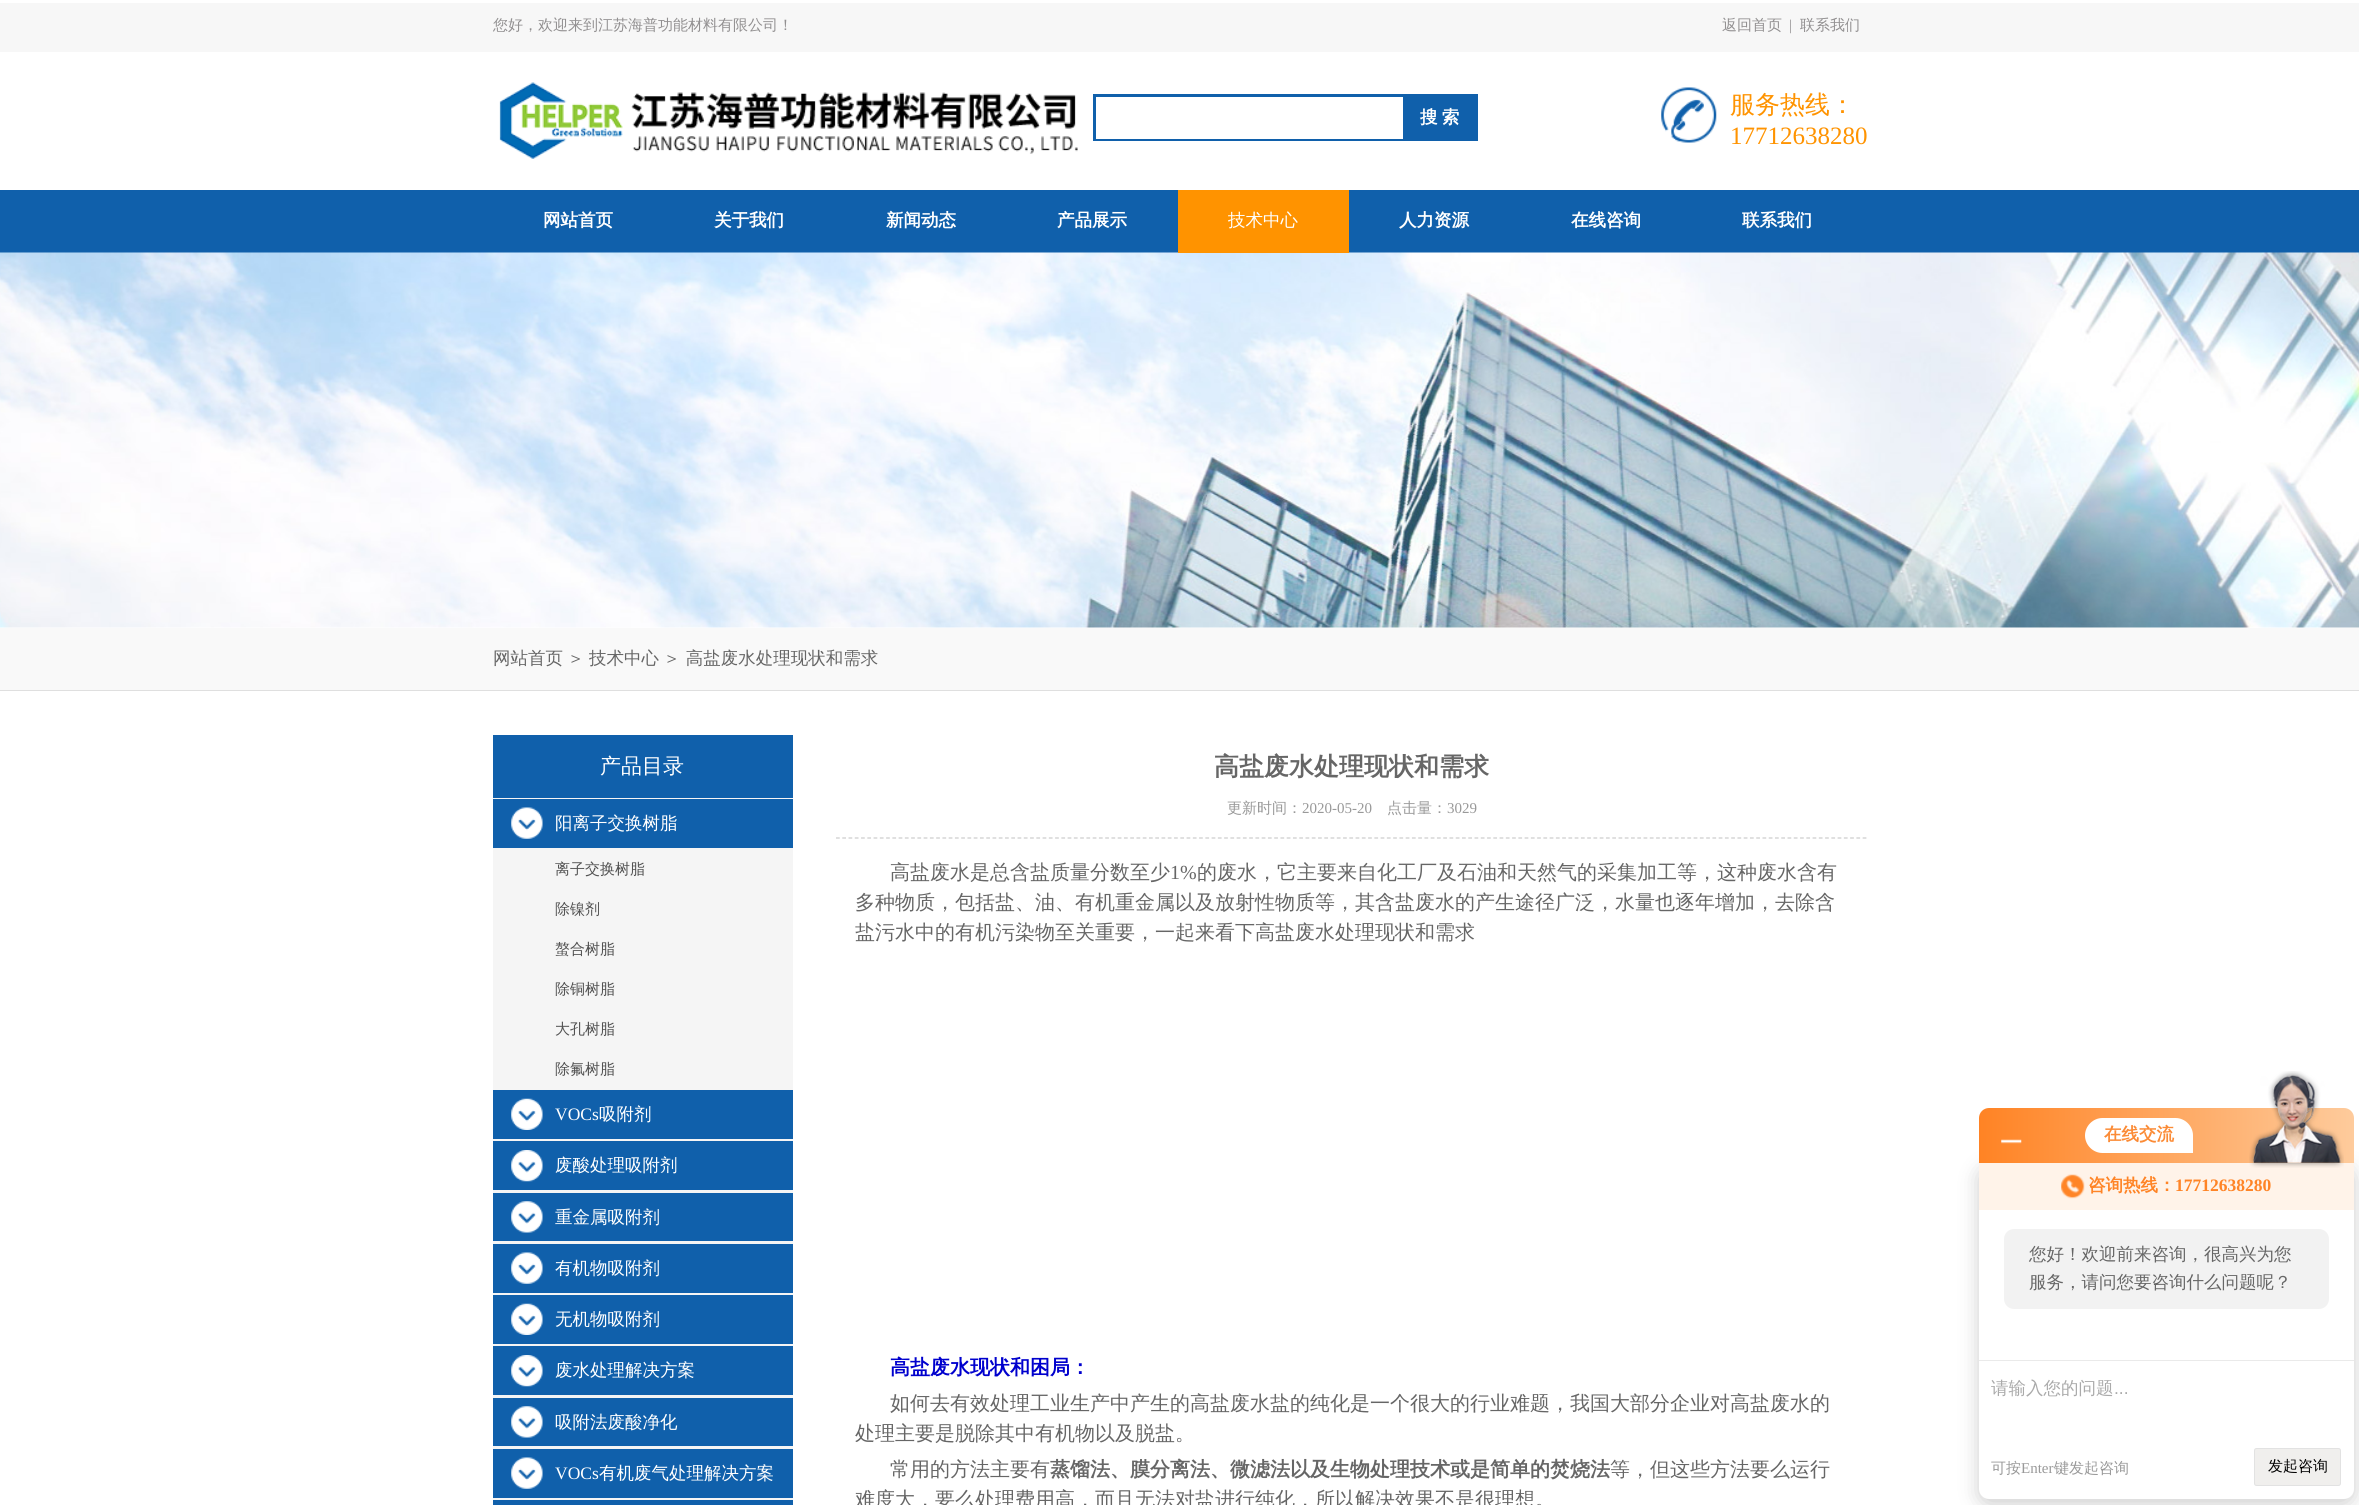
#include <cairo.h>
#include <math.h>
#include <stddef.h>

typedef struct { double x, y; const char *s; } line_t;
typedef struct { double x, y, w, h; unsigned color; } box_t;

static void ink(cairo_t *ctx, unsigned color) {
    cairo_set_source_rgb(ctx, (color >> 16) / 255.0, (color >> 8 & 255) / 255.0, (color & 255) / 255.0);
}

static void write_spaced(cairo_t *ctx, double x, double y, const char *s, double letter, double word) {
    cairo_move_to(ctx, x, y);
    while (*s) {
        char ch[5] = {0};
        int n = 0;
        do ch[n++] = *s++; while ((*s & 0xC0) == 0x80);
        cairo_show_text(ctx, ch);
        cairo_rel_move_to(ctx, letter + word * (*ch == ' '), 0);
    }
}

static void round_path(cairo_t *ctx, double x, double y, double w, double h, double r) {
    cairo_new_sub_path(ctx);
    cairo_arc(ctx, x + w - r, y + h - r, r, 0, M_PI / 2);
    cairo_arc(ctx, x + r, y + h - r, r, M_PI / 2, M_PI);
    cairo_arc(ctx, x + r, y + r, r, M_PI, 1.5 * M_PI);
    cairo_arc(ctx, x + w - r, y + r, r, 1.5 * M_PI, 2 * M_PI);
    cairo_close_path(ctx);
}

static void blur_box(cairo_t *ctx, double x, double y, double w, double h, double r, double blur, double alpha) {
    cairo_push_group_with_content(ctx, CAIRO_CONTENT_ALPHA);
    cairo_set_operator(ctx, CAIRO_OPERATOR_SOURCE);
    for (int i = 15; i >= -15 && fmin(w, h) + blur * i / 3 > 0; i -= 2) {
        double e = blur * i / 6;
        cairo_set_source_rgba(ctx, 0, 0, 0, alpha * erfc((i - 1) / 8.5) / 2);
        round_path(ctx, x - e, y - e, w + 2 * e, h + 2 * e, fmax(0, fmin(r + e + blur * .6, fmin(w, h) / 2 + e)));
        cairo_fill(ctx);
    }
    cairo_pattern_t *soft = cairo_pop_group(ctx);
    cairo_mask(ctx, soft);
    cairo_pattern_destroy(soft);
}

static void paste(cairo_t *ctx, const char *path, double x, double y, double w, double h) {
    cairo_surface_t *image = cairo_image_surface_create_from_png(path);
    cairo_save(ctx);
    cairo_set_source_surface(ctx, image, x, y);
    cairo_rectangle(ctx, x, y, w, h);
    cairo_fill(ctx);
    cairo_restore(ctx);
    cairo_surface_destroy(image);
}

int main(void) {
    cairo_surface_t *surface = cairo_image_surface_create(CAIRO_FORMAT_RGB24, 2359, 1505);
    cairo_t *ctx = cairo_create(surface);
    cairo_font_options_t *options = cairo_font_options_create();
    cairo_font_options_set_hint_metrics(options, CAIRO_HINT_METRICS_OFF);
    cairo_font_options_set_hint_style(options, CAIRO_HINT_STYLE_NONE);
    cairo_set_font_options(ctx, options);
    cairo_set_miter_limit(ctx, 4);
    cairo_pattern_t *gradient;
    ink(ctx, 0xFFFFFF);
    cairo_paint(ctx);
    ink(ctx, 0xF7F7F7);
    cairo_rectangle(ctx, 0, 3, 2359, 49);
    cairo_fill(ctx);
    cairo_select_font_face(ctx, "WenQuanYi Zen Hei Medium", CAIRO_FONT_SLANT_NORMAL, CAIRO_FONT_WEIGHT_NORMAL);
    cairo_set_font_size(ctx, 15);
    ink(ctx, 0x929091);
    cairo_move_to(ctx, 493, 30);
    cairo_show_text(ctx, "您好，欢迎来到江苏海普功能材料有限公司！");
    cairo_move_to(ctx, 1722, 30);
    cairo_show_text(ctx, "返回首页");
    cairo_select_font_face(ctx, "Liberation Serif", CAIRO_FONT_SLANT_NORMAL, CAIRO_FONT_WEIGHT_NORMAL);
    cairo_move_to(ctx, 1789, 30);
    cairo_show_text(ctx, "|");
    cairo_select_font_face(ctx, "WenQuanYi Zen Hei Medium", CAIRO_FONT_SLANT_NORMAL, CAIRO_FONT_WEIGHT_NORMAL);
    cairo_move_to(ctx, 1800, 30);
    cairo_show_text(ctx, "联系我们");
    paste(ctx, "media/1.png", 499, 82, 579, 77);
    {
        static const box_t items[] = {
            {1093, 94, 310, 3, 0x1060AB},
            {1093, 139, 310, 2, 0x1060AB},
            {1093, 94, 3, 47, 0x1060AB},
            {1403, 94, 75, 47, 0x1060AB},
        };
        for (size_t i = 0; i < sizeof items / sizeof *items; i++) {
            ink(ctx, items[i].color);
            cairo_rectangle(ctx, items[i].x, items[i].y, items[i].w, items[i].h);
            cairo_fill(ctx);
        }
    }
    cairo_select_font_face(ctx, "WenQuanYi Zen Hei", CAIRO_FONT_SLANT_NORMAL, CAIRO_FONT_WEIGHT_BOLD);
    cairo_set_font_size(ctx, 17.5);
    ink(ctx, 0xFFFFFF);
    write_spaced(ctx, 1420, 123, "搜 索", 0, -1);
    paste(ctx, "media/2.png", 1661, 87, 56, 56);
    cairo_select_font_face(ctx, "WenQuanYi Zen Hei Medium", CAIRO_FONT_SLANT_NORMAL, CAIRO_FONT_WEIGHT_NORMAL);
    cairo_set_font_size(ctx, 25);
    ink(ctx, 0xFF9300);
    cairo_move_to(ctx, 1730, 113);
    cairo_show_text(ctx, "服务热线：");
    cairo_select_font_face(ctx, "Liberation Serif", CAIRO_FONT_SLANT_NORMAL, CAIRO_FONT_WEIGHT_NORMAL);
    cairo_move_to(ctx, 1730, 144);
    cairo_show_text(ctx, "17712638280");
    ink(ctx, 0x1060AB);
    cairo_rectangle(ctx, 0, 190, 2359, 63);
    cairo_fill(ctx);
    cairo_select_font_face(ctx, "WenQuanYi Zen Hei", CAIRO_FONT_SLANT_NORMAL, CAIRO_FONT_WEIGHT_BOLD);
    cairo_set_font_size(ctx, 17.5);
    ink(ctx, 0xFFFFFF);
    {
        static const line_t items[] = {
            {543, 226, "网站首页"},
            {714, 226, "关于我们"},
            {886, 226, "新闻动态"},
            {1057, 226, "产品展示"},
        };
        for (size_t i = 0; i < sizeof items / sizeof *items; i++) {
            cairo_move_to(ctx, items[i].x, items[i].y);
            cairo_show_text(ctx, items[i].s);
        }
    }
    paste(ctx, "media/3.png", 0, 252, 2359, 376);
    ink(ctx, 0xFF9300);
    cairo_rectangle(ctx, 1178, 190, 171, 63);
    cairo_fill(ctx);
    cairo_select_font_face(ctx, "WenQuanYi Zen Hei Medium", CAIRO_FONT_SLANT_NORMAL, CAIRO_FONT_WEIGHT_NORMAL);
    ink(ctx, 0xFFFFFF);
    cairo_move_to(ctx, 1228, 226);
    cairo_show_text(ctx, "技术中心");
    cairo_select_font_face(ctx, "WenQuanYi Zen Hei", CAIRO_FONT_SLANT_NORMAL, CAIRO_FONT_WEIGHT_BOLD);
    {
        static const line_t items[] = {
            {1399, 226, "人力资源"},
            {1571, 226, "在线咨询"},
            {1742, 226, "联系我们"},
        };
        for (size_t i = 0; i < sizeof items / sizeof *items; i++) {
            cairo_move_to(ctx, items[i].x, items[i].y);
            cairo_show_text(ctx, items[i].s);
        }
    }
    ink(ctx, 0xF9F9F9);
    cairo_rectangle(ctx, 0, 628, 2359, 62);
    cairo_fill(ctx);
    ink(ctx, 0xDFDFDF);
    cairo_rectangle(ctx, 0, 690, 2359, 1);
    cairo_fill(ctx);
    cairo_select_font_face(ctx, "WenQuanYi Zen Hei Medium", CAIRO_FONT_SLANT_NORMAL, CAIRO_FONT_WEIGHT_NORMAL);
    ink(ctx, 0x666666);
    {
        static const line_t items[] = {
            {493, 664, "网站首页"},
            {567, 664, "＞"},
            {589, 664, "技术中心"},
            {663, 664, "＞ 高盐废水处理现状和需求"},
        };
        for (size_t i = 0; i < sizeof items / sizeof *items; i++) {
            cairo_move_to(ctx, items[i].x, items[i].y);
            cairo_show_text(ctx, items[i].s);
        }
    }
    ink(ctx, 0xF5F5F5);
    cairo_rectangle(ctx, 493, 798, 300, 702);
    cairo_fill(ctx);
    ink(ctx, 0x1060AB);
    cairo_rectangle(ctx, 493, 735, 300, 63);
    cairo_fill(ctx);
    cairo_set_font_size(ctx, 21);
    ink(ctx, 0xFFFFFF);
    cairo_move_to(ctx, 600, 773);
    cairo_show_text(ctx, "产品目录");
    ink(ctx, 0x1060AB);
    cairo_rectangle(ctx, 493, 799, 300, 49);
    cairo_fill(ctx);
    paste(ctx, "media/4.png", 511, 807, 32, 32);
    cairo_set_font_size(ctx, 17.5);
    ink(ctx, 0xFFFFFF);
    cairo_move_to(ctx, 555, 829);
    cairo_show_text(ctx, "阳离子交换树脂");
    cairo_set_font_size(ctx, 15);
    ink(ctx, 0x515151);
    {
        static const line_t items[] = {
            {555, 874, "离子交换树脂"},
            {555, 914, "除镍剂"},
            {555, 954, "螯合树脂"},
            {555, 994, "除铜树脂"},
            {555, 1034, "大孔树脂"},
            {555, 1074, "除氟树脂"},
        };
        for (size_t i = 0; i < sizeof items / sizeof *items; i++) {
            cairo_move_to(ctx, items[i].x, items[i].y);
            cairo_show_text(ctx, items[i].s);
        }
    }
    ink(ctx, 0x1060AB);
    cairo_rectangle(ctx, 493, 1090, 300, 49);
    cairo_fill(ctx);
    paste(ctx, "media/5.png", 511, 1098, 32, 32);
    cairo_select_font_face(ctx, "Liberation Serif", CAIRO_FONT_SLANT_NORMAL, CAIRO_FONT_WEIGHT_NORMAL);
    cairo_set_font_size(ctx, 17.5);
    ink(ctx, 0xFFFFFF);
    cairo_move_to(ctx, 555, 1120);
    cairo_show_text(ctx, "VOCs");
    cairo_select_font_face(ctx, "WenQuanYi Zen Hei Medium", CAIRO_FONT_SLANT_NORMAL, CAIRO_FONT_WEIGHT_NORMAL);
    cairo_move_to(ctx, 599, 1120);
    cairo_show_text(ctx, "吸附剂");
    ink(ctx, 0x1060AB);
    cairo_rectangle(ctx, 493, 1141, 300, 49);
    cairo_fill(ctx);
    paste(ctx, "media/6.png", 511, 1150, 32, 32);
    ink(ctx, 0xFFFFFF);
    cairo_move_to(ctx, 555, 1171);
    cairo_show_text(ctx, "废酸处理吸附剂");
    ink(ctx, 0x1060AB);
    cairo_rectangle(ctx, 493, 1193, 300, 48);
    cairo_fill(ctx);
    paste(ctx, "media/7.png", 511, 1201, 32, 32);
    ink(ctx, 0xFFFFFF);
    cairo_move_to(ctx, 555, 1223);
    cairo_show_text(ctx, "重金属吸附剂");
    ink(ctx, 0x1060AB);
    cairo_rectangle(ctx, 493, 1244, 300, 49);
    cairo_fill(ctx);
    paste(ctx, "media/4.png", 511, 1252, 32, 32);
    ink(ctx, 0xFFFFFF);
    cairo_move_to(ctx, 555, 1274);
    cairo_show_text(ctx, "有机物吸附剂");
    ink(ctx, 0x1060AB);
    cairo_rectangle(ctx, 493, 1295, 300, 49);
    cairo_fill(ctx);
    paste(ctx, "media/5.png", 511, 1303, 32, 32);
    ink(ctx, 0xFFFFFF);
    cairo_move_to(ctx, 555, 1325);
    cairo_show_text(ctx, "无机物吸附剂");
    ink(ctx, 0x1060AB);
    cairo_rectangle(ctx, 493, 1346, 300, 49);
    cairo_fill(ctx);
    paste(ctx, "media/8.png", 511, 1355, 32, 32);
    ink(ctx, 0xFFFFFF);
    cairo_move_to(ctx, 555, 1376);
    cairo_show_text(ctx, "废水处理解决方案");
    ink(ctx, 0x1060AB);
    cairo_rectangle(ctx, 493, 1398, 300, 48);
    cairo_fill(ctx);
    paste(ctx, "media/7.png", 511, 1406, 32, 32);
    ink(ctx, 0xFFFFFF);
    cairo_move_to(ctx, 555, 1428);
    cairo_show_text(ctx, "吸附法废酸净化");
    ink(ctx, 0x1060AB);
    cairo_rectangle(ctx, 493, 1449, 300, 49);
    cairo_fill(ctx);
    paste(ctx, "media/4.png", 511, 1457, 32, 32);
    cairo_select_font_face(ctx, "Liberation Serif", CAIRO_FONT_SLANT_NORMAL, CAIRO_FONT_WEIGHT_NORMAL);
    ink(ctx, 0xFFFFFF);
    cairo_move_to(ctx, 555, 1479);
    cairo_show_text(ctx, "VOCs");
    cairo_select_font_face(ctx, "WenQuanYi Zen Hei Medium", CAIRO_FONT_SLANT_NORMAL, CAIRO_FONT_WEIGHT_NORMAL);
    cairo_move_to(ctx, 599, 1479);
    cairo_show_text(ctx, "有机废气处理解决方案");
    ink(ctx, 0x1060AB);
    cairo_rectangle(ctx, 493, 1500, 300, 5);
    cairo_fill(ctx);
    cairo_select_font_face(ctx, "WenQuanYi Zen Hei", CAIRO_FONT_SLANT_NORMAL, CAIRO_FONT_WEIGHT_BOLD);
    cairo_set_font_size(ctx, 25);
    ink(ctx, 0x666666);
    cairo_move_to(ctx, 1214, 775);
    cairo_show_text(ctx, "高盐废水处理现状和需求");
    cairo_new_path(ctx);
    cairo_move_to(ctx, 836, 838);
    cairo_line_to(ctx, 1867.5, 838);
    ink(ctx, 0xCCCCCC);
    cairo_set_line_width(ctx, 1.2);
    cairo_set_dash(ctx, (double[]){3.75, 2.51}, 2, 0);
    cairo_stroke(ctx);
    cairo_select_font_face(ctx, "WenQuanYi Zen Hei Medium", CAIRO_FONT_SLANT_NORMAL, CAIRO_FONT_WEIGHT_NORMAL);
    cairo_set_font_size(ctx, 15);
    ink(ctx, 0x999999);
    cairo_move_to(ctx, 1227, 813);
    cairo_show_text(ctx, "更新时间：");
    cairo_select_font_face(ctx, "Liberation Serif", CAIRO_FONT_SLANT_NORMAL, CAIRO_FONT_WEIGHT_NORMAL);
    cairo_move_to(ctx, 1302, 813);
    cairo_show_text(ctx, "2020-05-20");
    cairo_select_font_face(ctx, "WenQuanYi Zen Hei Medium", CAIRO_FONT_SLANT_NORMAL, CAIRO_FONT_WEIGHT_NORMAL);
    cairo_move_to(ctx, 1387, 813);
    cairo_show_text(ctx, "点击量：");
    cairo_select_font_face(ctx, "Liberation Serif", CAIRO_FONT_SLANT_NORMAL, CAIRO_FONT_WEIGHT_NORMAL);
    cairo_move_to(ctx, 1447, 813);
    cairo_show_text(ctx, "3029");
    cairo_select_font_face(ctx, "WenQuanYi Zen Hei Medium", CAIRO_FONT_SLANT_NORMAL, CAIRO_FONT_WEIGHT_NORMAL);
    cairo_set_font_size(ctx, 20);
    ink(ctx, 0x666666);
    cairo_move_to(ctx, 890, 879);
    cairo_show_text(ctx, "高盐废水是总含盐质量分数至少");
    cairo_select_font_face(ctx, "Liberation Serif", CAIRO_FONT_SLANT_NORMAL, CAIRO_FONT_WEIGHT_NORMAL);
    cairo_move_to(ctx, 1170, 879);
    cairo_show_text(ctx, "1%");
    cairo_select_font_face(ctx, "WenQuanYi Zen Hei Medium", CAIRO_FONT_SLANT_NORMAL, CAIRO_FONT_WEIGHT_NORMAL);
    {
        static const line_t items[] = {
            {1197, 879, "的废水，它主要来自化工厂及石油和天然气的采集加工等，这种废水含有"},
            {855, 909, "多种物质，包括盐、油、有机重金属以及放射性物质等，其含盐废水的产生途径广泛，水量也逐年增加，去除含"},
            {855, 939, "盐污水中的有机污染物至关重要，一起来看下高盐废水处理现状和需求"},
        };
        for (size_t i = 0; i < sizeof items / sizeof *items; i++) {
            cairo_move_to(ctx, items[i].x, items[i].y);
            cairo_show_text(ctx, items[i].s);
        }
    }
    cairo_select_font_face(ctx, "WenQuanYi Zen Hei", CAIRO_FONT_SLANT_NORMAL, CAIRO_FONT_WEIGHT_BOLD);
    ink(ctx, 0x0000CD);
    cairo_move_to(ctx, 890, 1374);
    cairo_show_text(ctx, "高盐废水现状和困局：");
    cairo_select_font_face(ctx, "WenQuanYi Zen Hei Medium", CAIRO_FONT_SLANT_NORMAL, CAIRO_FONT_WEIGHT_NORMAL);
    ink(ctx, 0x666666);
    {
        static const line_t items[] = {
            {890, 1410, "如何去有效处理工业生产中产生的高盐废水盐的纯化是一个很大的行业难题，我国大部分企业对高盐废水的"},
            {855, 1440, "处理主要是脱除其中有机物以及脱盐。"},
            {890, 1476, "常用的方法主要有"},
        };
        for (size_t i = 0; i < sizeof items / sizeof *items; i++) {
            cairo_move_to(ctx, items[i].x, items[i].y);
            cairo_show_text(ctx, items[i].s);
        }
    }
    cairo_select_font_face(ctx, "WenQuanYi Zen Hei", CAIRO_FONT_SLANT_NORMAL, CAIRO_FONT_WEIGHT_BOLD);
    cairo_move_to(ctx, 1050, 1476);
    cairo_show_text(ctx, "蒸馏法、膜分离法、微滤法以及生物处理技术或是简单的焚烧法");
    cairo_select_font_face(ctx, "WenQuanYi Zen Hei Medium", CAIRO_FONT_SLANT_NORMAL, CAIRO_FONT_WEIGHT_NORMAL);
    cairo_move_to(ctx, 1610, 1476);
    cairo_show_text(ctx, "等，但这些方法要么运行");
    cairo_move_to(ctx, 855, 1506);
    cairo_show_text(ctx, "难度大，要么处理费用高，而且无法对盐进行纯化，所以解决效果不是很理想。");
    ink(ctx, 0x000000);
    blur_box(ctx, 1979, 1168, 375, 336, 10, 10, 0.2);
    gradient = cairo_pattern_create_linear(1979, 1135, 2354, 1135);
    cairo_pattern_add_color_stop_rgba(gradient, 0, 1, 0.514, 0.141, 1);
    cairo_pattern_add_color_stop_rgba(gradient, 1, 0.996, 0.796, 0.612, 1);
    cairo_set_source(ctx, gradient);
    cairo_pattern_destroy(gradient);
    cairo_new_path(ctx);
    cairo_move_to(ctx, 1989, 1108);
    cairo_line_to(ctx, 2344, 1108);
    cairo_curve_to(ctx, 2349.5, 1108, 2354, 1112.5, 2354, 1118);
    cairo_line_to(ctx, 2354, 1163);
    cairo_line_to(ctx, 1979, 1163);
    cairo_line_to(ctx, 1979, 1118);
    cairo_curve_to(ctx, 1979, 1112.5, 1983.5, 1108, 1989, 1108);
    cairo_close_path(ctx);
    cairo_fill(ctx);
    paste(ctx, "media/9.png", 2001, 1139, 21, 5);
    ink(ctx, 0xFFFFFF);
    cairo_new_path(ctx);
    cairo_move_to(ctx, 2102.5, 1118);
    cairo_line_to(ctx, 2175.5, 1118);
    cairo_curve_to(ctx, 2185, 1118, 2193, 1126, 2193, 1135.5);
    cairo_line_to(ctx, 2193, 1153);
    cairo_line_to(ctx, 2102.5, 1153);
    cairo_curve_to(ctx, 2093, 1153, 2085, 1145, 2085, 1135.5);
    cairo_curve_to(ctx, 2085, 1126, 2093, 1118, 2102.5, 1118);
    cairo_close_path(ctx);
    cairo_fill(ctx);
    cairo_select_font_face(ctx, "WenQuanYi Zen Hei", CAIRO_FONT_SLANT_NORMAL, CAIRO_FONT_WEIGHT_BOLD);
    cairo_set_font_size(ctx, 17.5);
    ink(ctx, 0xFB8B36);
    cairo_move_to(ctx, 2104, 1140);
    cairo_show_text(ctx, "在线交流");
    ink(ctx, 0xFFFFFF);
    cairo_new_path(ctx);
    cairo_move_to(ctx, 1979, 1163);
    cairo_line_to(ctx, 2354, 1163);
    cairo_line_to(ctx, 2354, 1489);
    cairo_curve_to(ctx, 2354, 1494.5, 2349.5, 1499, 2344, 1499);
    cairo_line_to(ctx, 1989, 1499);
    cairo_curve_to(ctx, 1983.5, 1499, 1979, 1494.5, 1979, 1489);
    cairo_close_path(ctx);
    cairo_fill(ctx);
    ink(ctx, 0xFFF3E9);
    cairo_rectangle(ctx, 1979, 1163, 375, 47);
    cairo_fill(ctx);
    paste(ctx, "media/10.png", 2249, 1071, 95, 97);
    paste(ctx, "media/11.png", 2061, 1174, 24, 25);
    ink(ctx, 0xFF8426);
    cairo_move_to(ctx, 2088, 1191);
    cairo_show_text(ctx, "咨询热线：");
    cairo_select_font_face(ctx, "Liberation Serif", CAIRO_FONT_SLANT_NORMAL, CAIRO_FONT_WEIGHT_BOLD);
    cairo_move_to(ctx, 2175, 1191);
    cairo_show_text(ctx, "17712638280");
    ink(ctx, 0xF2F2F2);
    round_path(ctx, 2004, 1229, 325, 80, 10);
    cairo_fill(ctx);
    cairo_select_font_face(ctx, "WenQuanYi Zen Hei Medium", CAIRO_FONT_SLANT_NORMAL, CAIRO_FONT_WEIGHT_NORMAL);
    ink(ctx, 0x666666);
    cairo_move_to(ctx, 2029, 1260);
    cairo_show_text(ctx, "您好！欢迎前来咨询，很高兴为您");
    cairo_move_to(ctx, 2029, 1288);
    cairo_show_text(ctx, "服务，请问您要咨询什么问题呢？");
    ink(ctx, 0xEAEAEA);
    cairo_rectangle(ctx, 1979, 1360, 375, 1);
    cairo_fill(ctx);
    ink(ctx, 0xAAAAAA);
    cairo_move_to(ctx, 1991, 1394);
    cairo_show_text(ctx, "请输入您的问题");
    cairo_select_font_face(ctx, "Liberation Sans", CAIRO_FONT_SLANT_NORMAL, CAIRO_FONT_WEIGHT_NORMAL);
    cairo_move_to(ctx, 2114, 1394);
    cairo_show_text(ctx, "...");
    cairo_select_font_face(ctx, "WenQuanYi Zen Hei Medium", CAIRO_FONT_SLANT_NORMAL, CAIRO_FONT_WEIGHT_NORMAL);
    cairo_set_font_size(ctx, 15);
    ink(ctx, 0x999999);
    cairo_move_to(ctx, 1991, 1473);
    cairo_show_text(ctx, "可按");
    cairo_select_font_face(ctx, "Liberation Serif", CAIRO_FONT_SLANT_NORMAL, CAIRO_FONT_WEIGHT_NORMAL);
    cairo_move_to(ctx, 2021, 1473);
    cairo_show_text(ctx, "Enter");
    cairo_select_font_face(ctx, "WenQuanYi Zen Hei Medium", CAIRO_FONT_SLANT_NORMAL, CAIRO_FONT_WEIGHT_NORMAL);
    cairo_move_to(ctx, 2054, 1473);
    cairo_show_text(ctx, "键发起咨询");
    ink(ctx, 0xF0EFED);
    round_path(ctx, 2254.5, 1448.5, 86, 37, 2);
    cairo_fill_preserve(ctx);
    ink(ctx, 0xE2E2E2);
    cairo_set_line_width(ctx, 1);
    cairo_set_dash(ctx, NULL, 0, 0);
    cairo_stroke(ctx);
    ink(ctx, 0x000000);
    cairo_move_to(ctx, 2268, 1471);
    cairo_show_text(ctx, "发起咨询");
    cairo_surface_write_to_png(surface, "image.png");
    cairo_font_options_destroy(options);
    cairo_destroy(ctx);
    cairo_surface_destroy(surface);
    return 0;
}
